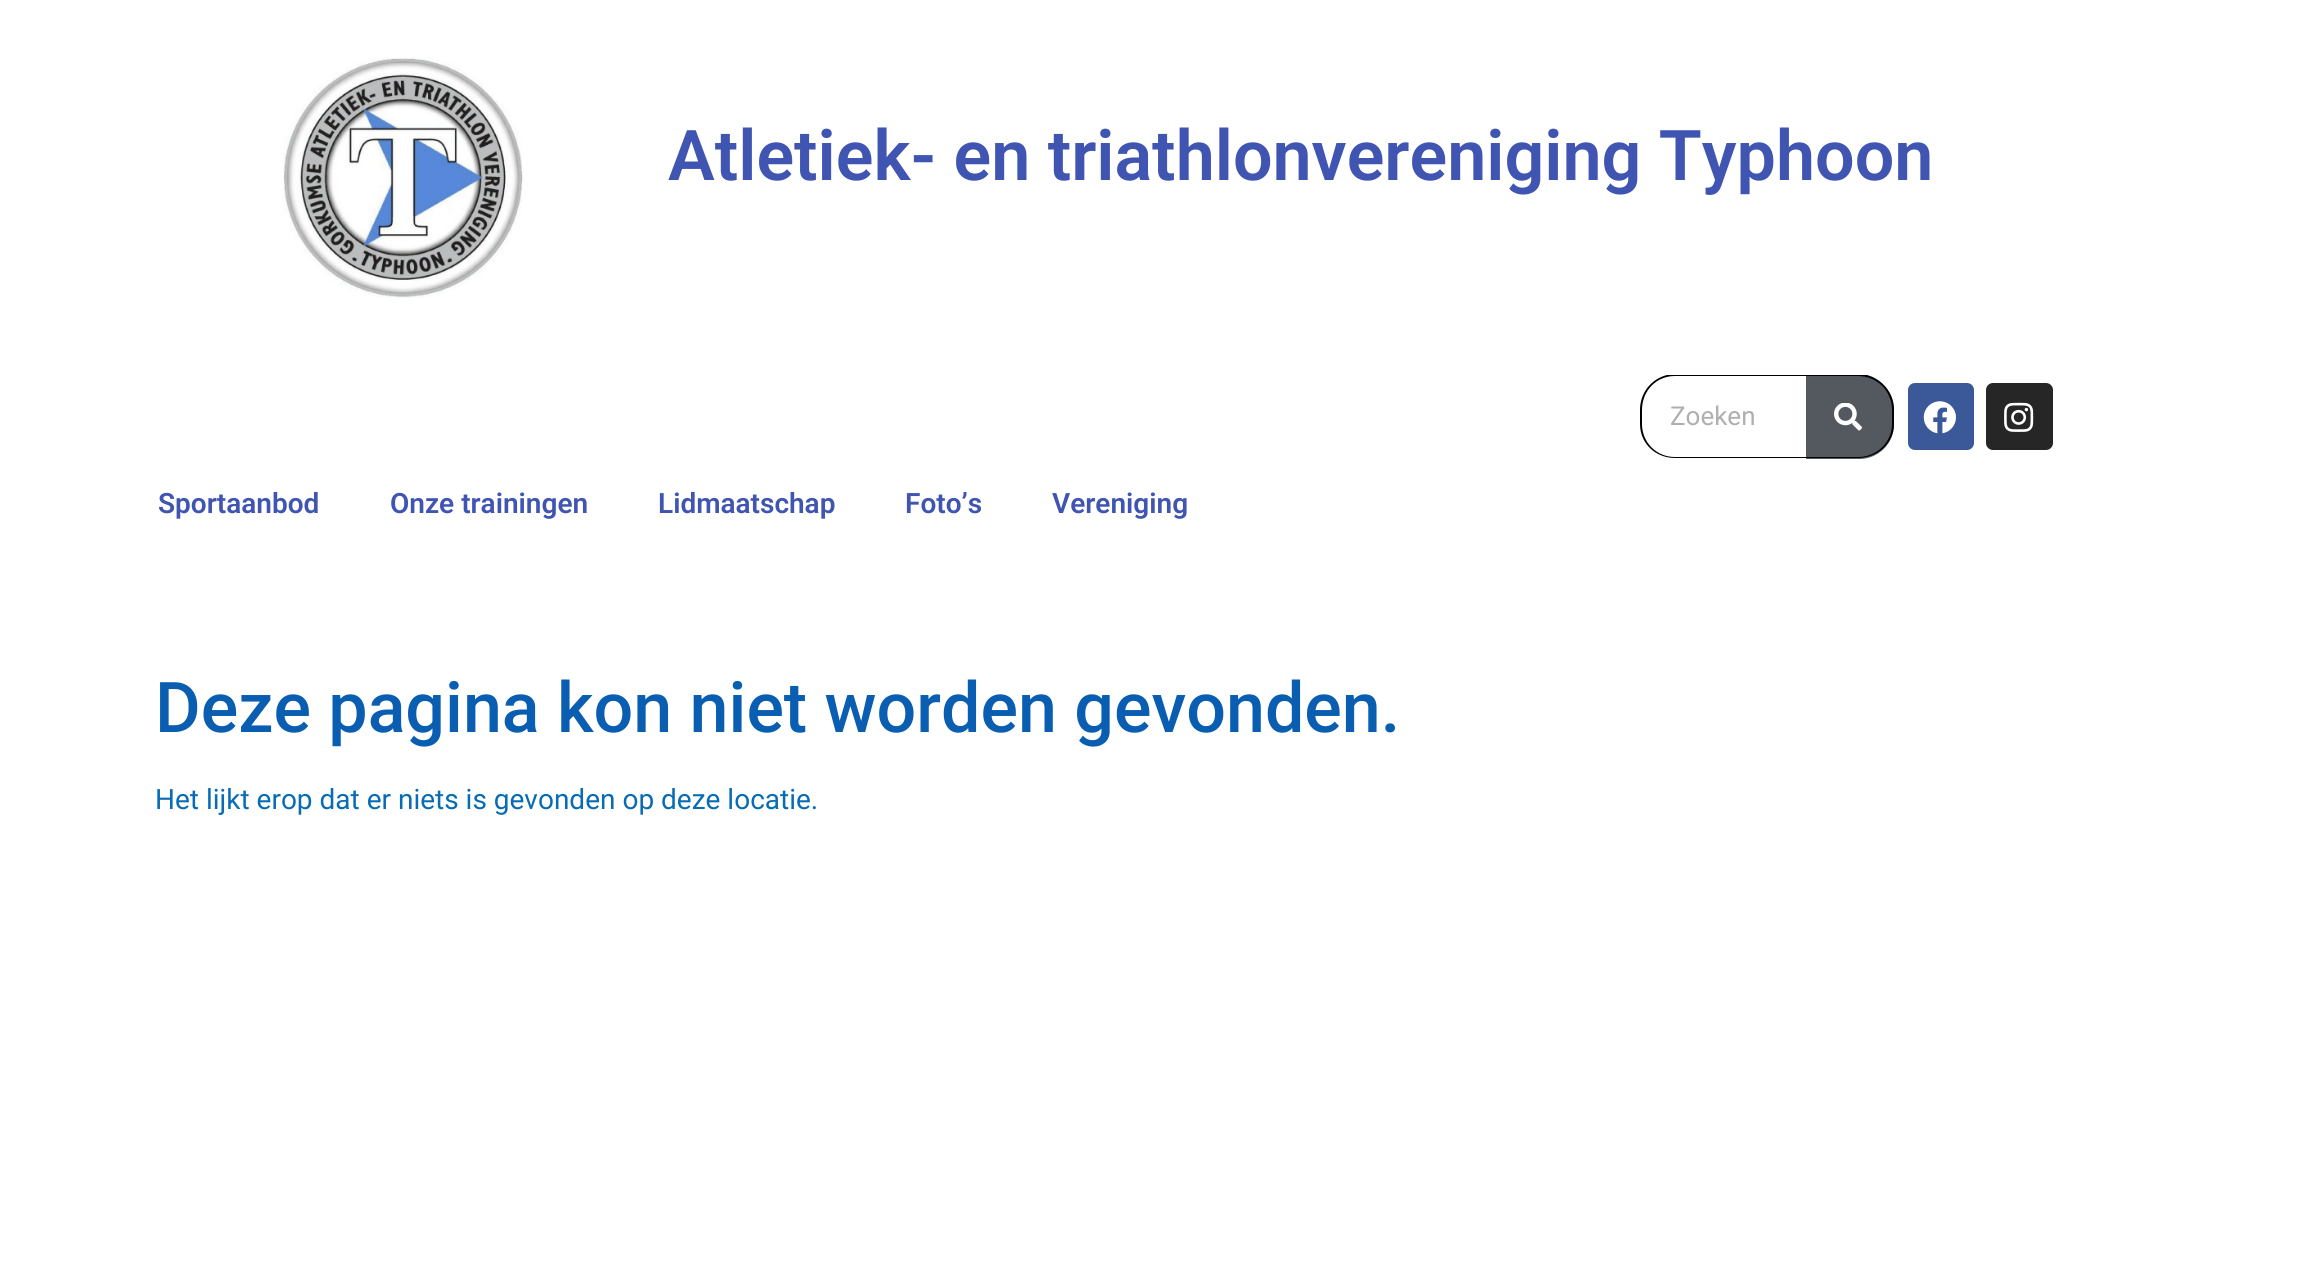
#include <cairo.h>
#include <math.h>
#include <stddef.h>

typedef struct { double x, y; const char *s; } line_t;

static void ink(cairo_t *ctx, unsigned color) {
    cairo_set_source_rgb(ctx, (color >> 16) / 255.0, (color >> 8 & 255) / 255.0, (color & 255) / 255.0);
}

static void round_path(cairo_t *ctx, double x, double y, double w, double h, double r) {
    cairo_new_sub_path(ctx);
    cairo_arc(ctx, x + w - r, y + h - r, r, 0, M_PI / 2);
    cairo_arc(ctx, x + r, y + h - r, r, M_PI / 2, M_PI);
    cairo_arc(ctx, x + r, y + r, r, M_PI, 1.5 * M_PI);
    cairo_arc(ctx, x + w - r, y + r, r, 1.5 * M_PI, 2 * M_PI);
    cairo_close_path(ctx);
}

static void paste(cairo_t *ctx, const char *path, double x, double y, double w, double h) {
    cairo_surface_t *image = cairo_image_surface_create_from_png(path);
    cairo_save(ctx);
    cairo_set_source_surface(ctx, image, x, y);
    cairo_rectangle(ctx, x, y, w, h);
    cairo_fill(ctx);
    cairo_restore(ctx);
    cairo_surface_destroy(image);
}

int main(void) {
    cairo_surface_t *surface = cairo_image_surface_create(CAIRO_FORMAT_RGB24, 2304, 1287);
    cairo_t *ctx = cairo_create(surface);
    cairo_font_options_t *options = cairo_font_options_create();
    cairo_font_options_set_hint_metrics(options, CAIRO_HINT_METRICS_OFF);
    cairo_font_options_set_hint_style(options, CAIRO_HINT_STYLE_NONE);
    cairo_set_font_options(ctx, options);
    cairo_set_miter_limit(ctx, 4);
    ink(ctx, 0xFFFFFF);
    cairo_paint(ctx);
    paste(ctx, "media/1.png", 283, 57, 241, 241);
    cairo_select_font_face(ctx, "Roboto SemiBold", CAIRO_FONT_SLANT_NORMAL, CAIRO_FONT_WEIGHT_NORMAL);
    cairo_set_font_size(ctx, 70);
    ink(ctx, 0x4054B2);
    cairo_move_to(ctx, 668, 180);
    cairo_show_text(ctx, "Atletiek- en triathlonvereniging Typhoon");
    ink(ctx, 0x000000);
    cairo_new_path(ctx);
    cairo_move_to(ctx, 1675, 376);
    cairo_line_to(ctx, 1806, 376);
    cairo_line_to(ctx, 1806, 375);
    cairo_line_to(ctx, 1667, 375);
    cairo_curve_to(ctx, 1651, 379, 1640, 393, 1640, 410);
    cairo_line_to(ctx, 1640, 424);
    cairo_curve_to(ctx, 1640, 443, 1655, 458, 1675, 458);
    cairo_line_to(ctx, 1806, 458);
    cairo_line_to(ctx, 1806, 457);
    cairo_line_to(ctx, 1675, 457);
    cairo_curve_to(ctx, 1656, 457, 1642, 442, 1642, 424);
    cairo_line_to(ctx, 1642, 410);
    cairo_curve_to(ctx, 1642, 391, 1656, 376, 1675, 376);
    cairo_close_path(ctx);
    cairo_fill(ctx);
    cairo_select_font_face(ctx, "Roboto", CAIRO_FONT_SLANT_NORMAL, CAIRO_FONT_WEIGHT_NORMAL);
    cairo_set_font_size(ctx, 26);
    ink(ctx, 0xAFAFAF);
    cairo_move_to(ctx, 1670, 425);
    cairo_show_text(ctx, "Zoeken");
    ink(ctx, 0x54595F);
    cairo_new_path(ctx);
    cairo_move_to(ctx, 1806, 375);
    cairo_line_to(ctx, 1859, 375);
    cairo_curve_to(ctx, 1878.5, 375, 1894, 390.5, 1894, 410);
    cairo_line_to(ctx, 1894, 424);
    cairo_curve_to(ctx, 1894, 443.5, 1878.5, 459, 1859, 459);
    cairo_line_to(ctx, 1806, 459);
    cairo_close_path(ctx);
    cairo_fill(ctx);
    ink(ctx, 0x000000);
    cairo_new_path(ctx);
    cairo_move_to(ctx, 1806, 376);
    cairo_line_to(ctx, 1858, 376);
    cairo_curve_to(ctx, 1877, 376, 1892, 391, 1892, 410);
    cairo_line_to(ctx, 1892, 424);
    cairo_curve_to(ctx, 1892, 442, 1877, 457, 1858, 457);
    cairo_line_to(ctx, 1806, 457);
    cairo_line_to(ctx, 1806, 458);
    cairo_line_to(ctx, 1858, 458);
    cairo_curve_to(ctx, 1878, 458, 1894, 443, 1894, 424);
    cairo_line_to(ctx, 1894, 410);
    cairo_curve_to(ctx, 1894, 393, 1882, 379, 1867, 375);
    cairo_line_to(ctx, 1806, 375);
    cairo_close_path(ctx);
    cairo_fill(ctx);
    paste(ctx, "media/2.png", 1834, 403, 28, 28);
    ink(ctx, 0x3B5998);
    round_path(ctx, 1908, 383, 66, 67, 7);
    cairo_fill(ctx);
    paste(ctx, "media/3.png", 1923, 401, 33, 33);
    ink(ctx, 0x262626);
    round_path(ctx, 1986, 383, 67, 67, 7);
    cairo_fill(ctx);
    paste(ctx, "media/4.png", 2004, 402, 30, 30);
    cairo_select_font_face(ctx, "Roboto SemiBold", CAIRO_FONT_SLANT_NORMAL, CAIRO_FONT_WEIGHT_NORMAL);
    cairo_set_font_size(ctx, 28);
    ink(ctx, 0x4054B2);
    {
        static const line_t items[] = {
            {158, 513, "Sportaanbod"},
            {390, 513, "Onze trainingen"},
            {658, 513, "Lidmaatschap"},
            {905, 513, "Foto’s"},
            {1052, 513, "Vereniging"},
        };
        for (size_t i = 0; i < sizeof items / sizeof *items; i++) {
            cairo_move_to(ctx, items[i].x, items[i].y);
            cairo_show_text(ctx, items[i].s);
        }
    }
    cairo_select_font_face(ctx, "Roboto Medium", CAIRO_FONT_SLANT_NORMAL, CAIRO_FONT_WEIGHT_NORMAL);
    cairo_set_font_size(ctx, 70);
    ink(ctx, 0x095EB1);
    cairo_move_to(ctx, 155, 732);
    cairo_show_text(ctx, "Deze pagina kon niet worden gevonden.");
    cairo_select_font_face(ctx, "Roboto", CAIRO_FONT_SLANT_NORMAL, CAIRO_FONT_WEIGHT_NORMAL);
    cairo_set_font_size(ctx, 28);
    ink(ctx, 0x076CB4);
    cairo_move_to(ctx, 155, 809);
    cairo_show_text(ctx, "Het lijkt erop dat er niets is gevonden op deze locatie.");
    cairo_surface_write_to_png(surface, "image.png");
    cairo_font_options_destroy(options);
    cairo_destroy(ctx);
    cairo_surface_destroy(surface);
    return 0;
}
